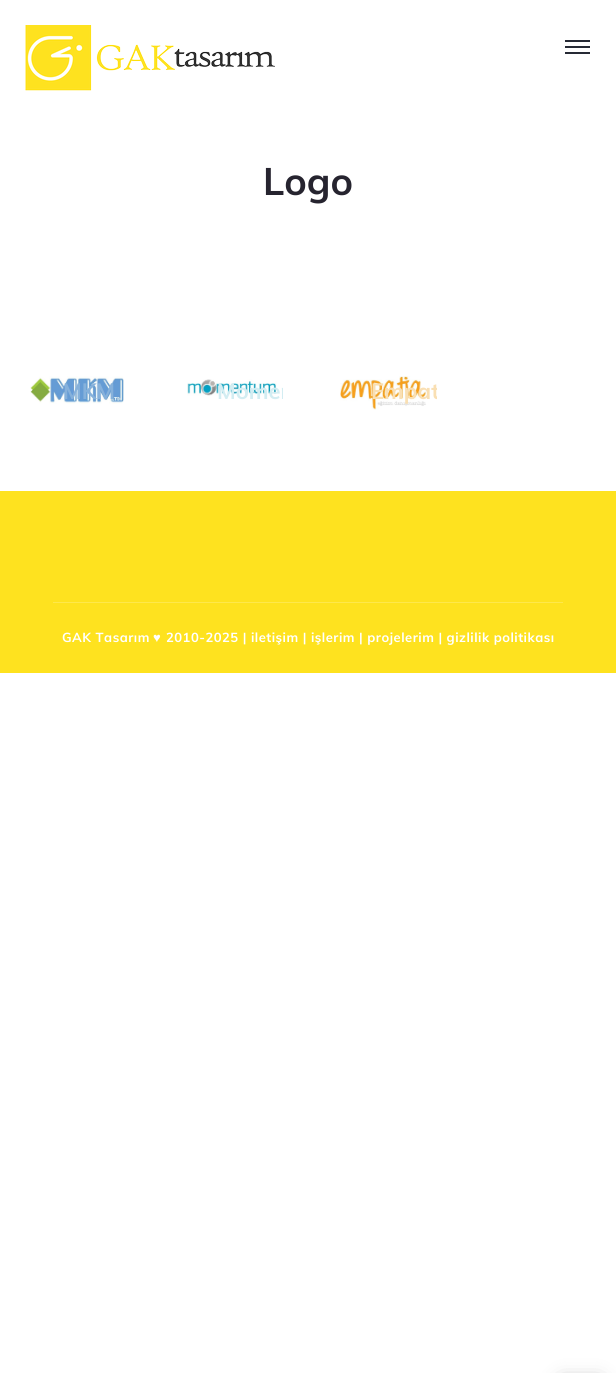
#include <cairo.h>
#include <math.h>
#include <stddef.h>

typedef struct { double x, y, w, h; unsigned color; } box_t;

static void ink(cairo_t *ctx, unsigned color) {
    cairo_set_source_rgb(ctx, (color >> 16) / 255.0, (color >> 8 & 255) / 255.0, (color & 255) / 255.0);
}

static void write_spaced(cairo_t *ctx, double x, double y, const char *s, double letter, double word) {
    cairo_move_to(ctx, x, y);
    while (*s) {
        char ch[5] = {0};
        int n = 0;
        do ch[n++] = *s++; while ((*s & 0xC0) == 0x80);
        cairo_show_text(ctx, ch);
        cairo_rel_move_to(ctx, letter + word * (*ch == ' '), 0);
    }
}

static void round_path(cairo_t *ctx, double x, double y, double w, double h, double r) {
    cairo_new_sub_path(ctx);
    cairo_arc(ctx, x + w - r, y + h - r, r, 0, M_PI / 2);
    cairo_arc(ctx, x + r, y + h - r, r, M_PI / 2, M_PI);
    cairo_arc(ctx, x + r, y + r, r, M_PI, 1.5 * M_PI);
    cairo_arc(ctx, x + w - r, y + r, r, 1.5 * M_PI, 2 * M_PI);
    cairo_close_path(ctx);
}

static void blur_box(cairo_t *ctx, double x, double y, double w, double h, double r, double blur, double alpha) {
    cairo_push_group_with_content(ctx, CAIRO_CONTENT_ALPHA);
    cairo_set_operator(ctx, CAIRO_OPERATOR_SOURCE);
    for (int i = 15; i >= -15 && fmin(w, h) + blur * i / 3 > 0; i -= 2) {
        double e = blur * i / 6;
        cairo_set_source_rgba(ctx, 0, 0, 0, alpha * erfc((i - 1) / 8.5) / 2);
        round_path(ctx, x - e, y - e, w + 2 * e, h + 2 * e, fmax(0, fmin(r + e + blur * .6, fmin(w, h) / 2 + e)));
        cairo_fill(ctx);
    }
    cairo_pattern_t *soft = cairo_pop_group(ctx);
    cairo_mask(ctx, soft);
    cairo_pattern_destroy(soft);
}

static void paste(cairo_t *ctx, const char *path, double x, double y, double w, double h) {
    cairo_surface_t *image = cairo_image_surface_create_from_png(path);
    cairo_save(ctx);
    cairo_set_source_surface(ctx, image, x, y);
    cairo_rectangle(ctx, x, y, w, h);
    cairo_fill(ctx);
    cairo_restore(ctx);
    cairo_surface_destroy(image);
}

int main(void) {
    cairo_surface_t *surface = cairo_image_surface_create(CAIRO_FORMAT_RGB24, 616, 1373);
    cairo_t *ctx = cairo_create(surface);
    cairo_font_options_t *options = cairo_font_options_create();
    cairo_font_options_set_hint_metrics(options, CAIRO_HINT_METRICS_OFF);
    cairo_font_options_set_hint_style(options, CAIRO_HINT_STYLE_NONE);
    cairo_set_font_options(ctx, options);
    cairo_set_miter_limit(ctx, 4);
    ink(ctx, 0xFFFFFF);
    cairo_paint(ctx);
    paste(ctx, "media/1.png", 25, 25, 250, 66);
    {
        static const box_t items[] = {
            {565, 40, 25, 2, 0x262A35},
            {565, 46, 25, 2, 0x262A35},
            {565, 52, 25, 2, 0x262A35},
        };
        for (size_t i = 0; i < sizeof items / sizeof *items; i++) {
            ink(ctx, items[i].color);
            cairo_rectangle(ctx, items[i].x, items[i].y, items[i].w, items[i].h);
            cairo_fill(ctx);
        }
    }
    cairo_select_font_face(ctx, "Muli", CAIRO_FONT_SLANT_NORMAL, CAIRO_FONT_WEIGHT_BOLD);
    cairo_set_font_size(ctx, 38);
    ink(ctx, 0x26242F);
    cairo_move_to(ctx, 263, 195);
    cairo_show_text(ctx, "Logo");
    paste(ctx, "media/2.png", 30, 376, 94, 28);
    cairo_set_font_size(ctx, 22);
    ink(ctx, 0x86B1DB);
    cairo_move_to(ctx, 63, 399);
    cairo_show_text(ctx, "MKM");
    paste(ctx, "media/3.png", 187, 379, 90, 17);
    cairo_save(ctx);
    cairo_rectangle(ctx, 179, 341, 104, 98);
    cairo_clip(ctx);
    ink(ctx, 0xD3EDF2);
    cairo_move_to(ctx, 217, 399);
    cairo_show_text(ctx, "Momen");
    cairo_restore(ctx);
    paste(ctx, "media/4.png", 340, 376, 87, 34);
    cairo_save(ctx);
    cairo_rectangle(ctx, 333, 341, 104, 98);
    cairo_clip(ctx);
    ink(ctx, 0xF9DFB3);
    cairo_move_to(ctx, 371, 399);
    cairo_show_text(ctx, "Empat");
    cairo_restore(ctx);
    ink(ctx, 0xFEE21F);
    cairo_rectangle(ctx, 0, 491, 616, 182);
    cairo_fill(ctx);
    ink(ctx, 0xFEE84C);
    cairo_rectangle(ctx, 53, 602, 510, 1);
    cairo_fill(ctx);
    cairo_set_font_size(ctx, 13);
    ink(ctx, 0xFFFFFF);
    write_spaced(ctx, 62, 642, "GAK Tasarım", 0.5, 0);
    cairo_select_font_face(ctx, "Liberation Sans", CAIRO_FONT_SLANT_NORMAL, CAIRO_FONT_WEIGHT_BOLD);
    write_spaced(ctx, 153, 642, "♥", 0.5, 0);
    cairo_select_font_face(ctx, "Muli", CAIRO_FONT_SLANT_NORMAL, CAIRO_FONT_WEIGHT_BOLD);
    write_spaced(ctx, 166, 642, "2010-2025 | iletişim | işlerim | projelerim | gizlilik politikası", 0.5, 0);
    ink(ctx, 0x000000);
    blur_box(ctx, 561, 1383, 40, 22, 2, 10, 0.4);
    cairo_surface_write_to_png(surface, "image.png");
    cairo_font_options_destroy(options);
    cairo_destroy(ctx);
    cairo_surface_destroy(surface);
    return 0;
}
